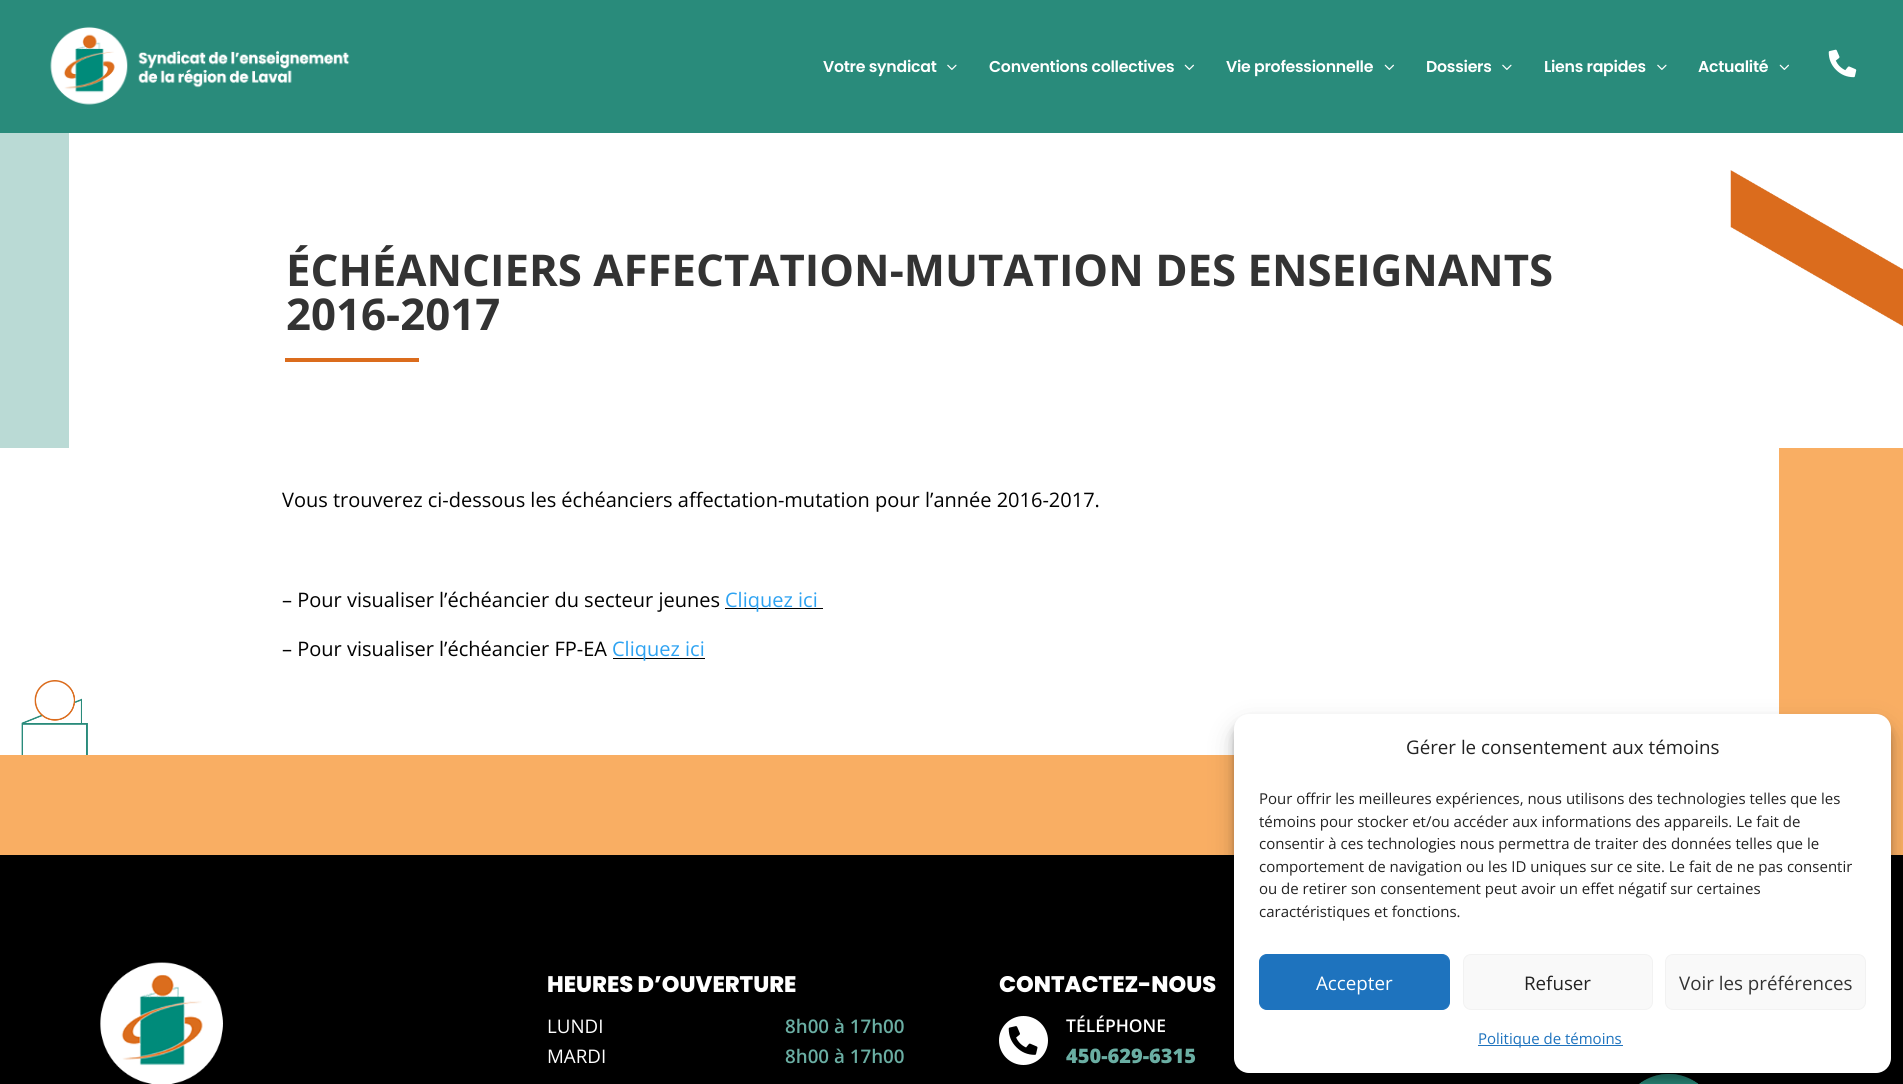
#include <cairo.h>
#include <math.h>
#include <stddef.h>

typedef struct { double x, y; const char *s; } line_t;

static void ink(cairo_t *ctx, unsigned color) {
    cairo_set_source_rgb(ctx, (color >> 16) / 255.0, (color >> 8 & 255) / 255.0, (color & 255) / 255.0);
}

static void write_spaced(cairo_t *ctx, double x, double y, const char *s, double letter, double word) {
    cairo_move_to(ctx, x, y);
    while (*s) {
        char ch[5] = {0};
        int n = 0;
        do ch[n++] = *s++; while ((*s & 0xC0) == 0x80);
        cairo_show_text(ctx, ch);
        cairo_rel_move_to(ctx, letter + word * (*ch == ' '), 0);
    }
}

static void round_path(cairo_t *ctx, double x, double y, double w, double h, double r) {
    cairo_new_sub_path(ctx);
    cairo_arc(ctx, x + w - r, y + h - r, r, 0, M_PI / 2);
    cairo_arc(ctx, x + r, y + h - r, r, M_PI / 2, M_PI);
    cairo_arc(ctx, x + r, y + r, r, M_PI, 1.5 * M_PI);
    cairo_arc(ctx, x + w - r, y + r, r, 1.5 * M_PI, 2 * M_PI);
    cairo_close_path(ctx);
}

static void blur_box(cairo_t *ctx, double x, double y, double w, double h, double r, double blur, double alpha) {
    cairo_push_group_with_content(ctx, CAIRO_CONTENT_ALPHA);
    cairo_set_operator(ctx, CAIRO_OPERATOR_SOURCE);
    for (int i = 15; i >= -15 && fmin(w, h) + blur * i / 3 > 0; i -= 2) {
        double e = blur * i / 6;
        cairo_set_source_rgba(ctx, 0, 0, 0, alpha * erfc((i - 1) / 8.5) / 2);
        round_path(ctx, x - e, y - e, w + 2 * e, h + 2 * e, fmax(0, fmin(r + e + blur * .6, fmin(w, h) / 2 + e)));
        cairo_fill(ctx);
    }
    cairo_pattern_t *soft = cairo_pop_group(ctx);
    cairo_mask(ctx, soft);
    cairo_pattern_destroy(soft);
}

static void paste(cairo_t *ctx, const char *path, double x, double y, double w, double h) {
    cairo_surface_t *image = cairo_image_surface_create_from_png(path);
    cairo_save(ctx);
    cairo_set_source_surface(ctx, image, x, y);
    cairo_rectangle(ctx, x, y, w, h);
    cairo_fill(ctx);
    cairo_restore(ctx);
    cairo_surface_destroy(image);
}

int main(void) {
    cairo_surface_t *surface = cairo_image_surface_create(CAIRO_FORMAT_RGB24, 1903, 1084);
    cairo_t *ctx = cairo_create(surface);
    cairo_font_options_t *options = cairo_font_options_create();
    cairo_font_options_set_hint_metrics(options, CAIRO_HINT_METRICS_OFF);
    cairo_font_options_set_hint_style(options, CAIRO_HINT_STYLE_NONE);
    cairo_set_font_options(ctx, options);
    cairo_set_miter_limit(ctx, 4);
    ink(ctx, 0xFFFFFF);
    cairo_paint(ctx);
    ink(ctx, 0x298B7B);
    cairo_rectangle(ctx, 0, 0, 1903, 133);
    cairo_fill(ctx);
    paste(ctx, "media/1.png", 50, 26, 300, 79);
    cairo_select_font_face(ctx, "Poppins SemiBold", CAIRO_FONT_SLANT_NORMAL, CAIRO_FONT_WEIGHT_NORMAL);
    cairo_set_font_size(ctx, 15.75);
    ink(ctx, 0xFFFFFF);
    write_spaced(ctx, 823, 72, "Votre syndicat", -0.25, 0);
    paste(ctx, "media/2.png", 947, 64, 10, 6);
    write_spaced(ctx, 989, 72, "Conventions collectives", -0.25, 0);
    paste(ctx, "media/3.png", 1184, 64, 10, 6);
    write_spaced(ctx, 1226, 72, "Vie professionnelle", -0.25, 0);
    paste(ctx, "media/3.png", 1384, 64, 10, 6);
    write_spaced(ctx, 1426, 72, "Dossiers", -0.25, 0);
    paste(ctx, "media/2.png", 1502, 64, 10, 6);
    write_spaced(ctx, 1544, 72, "Liens rapides", -0.25, 0);
    paste(ctx, "media/2.png", 1657, 64, 10, 6);
    write_spaced(ctx, 1698, 72, "Actualité", -0.25, 0);
    paste(ctx, "media/3.png", 1779, 64, 10, 6);
    paste(ctx, "media/4.png", 1828, 49, 29, 29);
    paste(ctx, "media/5.png", 1730, 170, 173, 157);
    ink(ctx, 0xBADAD5);
    cairo_rectangle(ctx, 0, 133, 69, 315);
    cairo_fill(ctx);
    cairo_select_font_face(ctx, "Open Sans", CAIRO_FONT_SLANT_NORMAL, CAIRO_FONT_WEIGHT_BOLD);
    cairo_set_font_size(ctx, 43.75);
    ink(ctx, 0x333333);
    cairo_move_to(ctx, 286, 286);
    cairo_show_text(ctx, "ÉCHÉANCIERS AFFECTATION-MUTATION DES ENSEIGNANTS");
    cairo_move_to(ctx, 286, 330);
    cairo_show_text(ctx, "2016-2017");
    ink(ctx, 0xDB6C1D);
    cairo_rectangle(ctx, 285, 358, 134, 4);
    cairo_fill(ctx);
    paste(ctx, "media/6.png", 21, 680, 67, 75);
    cairo_save(ctx);
    cairo_rectangle(ctx, 0, 448, 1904, 407);
    cairo_clip(ctx);
    ink(ctx, 0xF9AE63);
    cairo_set_fill_rule(ctx, CAIRO_FILL_RULE_EVEN_ODD);
    cairo_new_path(ctx);
    cairo_move_to(ctx, -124, 324);
    cairo_line_to(ctx, 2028, 324);
    cairo_line_to(ctx, 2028, 979);
    cairo_line_to(ctx, -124, 979);
    cairo_close_path(ctx);
    cairo_move_to(ctx, -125, 348);
    cairo_line_to(ctx, 1779, 348);
    cairo_line_to(ctx, 1779, 755);
    cairo_line_to(ctx, -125, 755);
    cairo_close_path(ctx);
    cairo_fill(ctx);
    cairo_restore(ctx);
    cairo_select_font_face(ctx, "Open Sans", CAIRO_FONT_SLANT_NORMAL, CAIRO_FONT_WEIGHT_NORMAL);
    cairo_set_font_size(ctx, 20);
    ink(ctx, 0x010101);
    cairo_move_to(ctx, 282, 507);
    cairo_show_text(ctx, "Vous trouverez ci-dessous les échéanciers affectation-mutation pour l’année 2016-2017.");
    cairo_move_to(ctx, 282, 607);
    cairo_show_text(ctx, "– Pour visualiser l’échéancier du secteur jeunes");
    cairo_rectangle(ctx, 725, 608, 98, 1);
    cairo_fill(ctx);
    ink(ctx, 0x2EA3F2);
    cairo_move_to(ctx, 725, 607);
    cairo_show_text(ctx, "Cliquez ici");
    ink(ctx, 0x010101);
    cairo_move_to(ctx, 282, 656);
    cairo_show_text(ctx, "– Pour visualiser l’échéancier FP-EA");
    cairo_rectangle(ctx, 613, 658, 92, 1);
    cairo_fill(ctx);
    ink(ctx, 0x2EA3F2);
    cairo_move_to(ctx, 612, 656);
    cairo_show_text(ctx, "Cliquez ici");
    ink(ctx, 0x000000);
    cairo_rectangle(ctx, 0, 855, 1903, 229);
    cairo_fill(ctx);
    paste(ctx, "media/7.png", 100, 962, 123, 122);
    cairo_select_font_face(ctx, "Poppins ExtraBold", CAIRO_FONT_SLANT_NORMAL, CAIRO_FONT_WEIGHT_NORMAL);
    cairo_set_font_size(ctx, 22.5);
    ink(ctx, 0xFFFFFF);
    cairo_move_to(ctx, 547, 992);
    cairo_show_text(ctx, "HEURES D’OUVERTURE");
    cairo_select_font_face(ctx, "Open Sans", CAIRO_FONT_SLANT_NORMAL, CAIRO_FONT_WEIGHT_NORMAL);
    cairo_set_font_size(ctx, 18.75);
    cairo_move_to(ctx, 547, 1033);
    cairo_show_text(ctx, "LUNDI");
    cairo_select_font_face(ctx, "Open Sans SemiBold", CAIRO_FONT_SLANT_NORMAL, CAIRO_FONT_WEIGHT_NORMAL);
    ink(ctx, 0x6AAEA3);
    cairo_move_to(ctx, 785, 1033);
    cairo_show_text(ctx, "8h00 à 17h00");
    cairo_select_font_face(ctx, "Open Sans", CAIRO_FONT_SLANT_NORMAL, CAIRO_FONT_WEIGHT_NORMAL);
    ink(ctx, 0xFFFFFF);
    cairo_move_to(ctx, 547, 1063);
    cairo_show_text(ctx, "MARDI");
    cairo_select_font_face(ctx, "Open Sans SemiBold", CAIRO_FONT_SLANT_NORMAL, CAIRO_FONT_WEIGHT_NORMAL);
    ink(ctx, 0x6AAEA3);
    cairo_move_to(ctx, 785, 1063);
    cairo_show_text(ctx, "8h00 à 17h00");
    cairo_select_font_face(ctx, "Poppins ExtraBold", CAIRO_FONT_SLANT_NORMAL, CAIRO_FONT_WEIGHT_NORMAL);
    cairo_set_font_size(ctx, 22.5);
    ink(ctx, 0xFFFFFF);
    cairo_move_to(ctx, 999, 992);
    cairo_show_text(ctx, "CONTACTEZ-NOUS");
    cairo_new_path(ctx);
    cairo_arc(ctx, 1023.5, 1040.5, 24.5, 0, 2 * M_PI);
    cairo_fill(ctx);
    paste(ctx, "media/8.png", 1008, 1026, 30, 29);
    cairo_select_font_face(ctx, "Open Sans SemiBold", CAIRO_FONT_SLANT_NORMAL, CAIRO_FONT_WEIGHT_NORMAL);
    cairo_set_font_size(ctx, 17.5);
    cairo_move_to(ctx, 1066, 1032);
    cairo_show_text(ctx, "TÉLÉPHONE");
    cairo_select_font_face(ctx, "Open Sans ExtraBold", CAIRO_FONT_SLANT_NORMAL, CAIRO_FONT_WEIGHT_NORMAL);
    cairo_set_font_size(ctx, 20);
    ink(ctx, 0x6AAEA3);
    cairo_move_to(ctx, 1066, 1063);
    cairo_show_text(ctx, "450-629-6315");
    paste(ctx, "media/9.png", 1639, 1074, 60, 10);
    ink(ctx, 0x000000);
    blur_box(ctx, 1234, 721, 657, 359, 15, 4, 0.23);
    blur_box(ctx, 1234, 726, 657, 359, 15, 12.5, 0.19);
    ink(ctx, 0xFFFFFF);
    round_path(ctx, 1234, 714, 657, 359, 15);
    cairo_fill(ctx);
    cairo_select_font_face(ctx, "Open Sans", CAIRO_FONT_SLANT_NORMAL, CAIRO_FONT_WEIGHT_NORMAL);
    cairo_set_font_size(ctx, 18.75);
    ink(ctx, 0x222222);
    cairo_move_to(ctx, 1406, 754);
    cairo_show_text(ctx, "Gérer le consentement aux témoins");
    cairo_set_font_size(ctx, 15);
    {
        static const line_t items[] = {
            {1259, 804, "Pour offrir les meilleures expériences, nous utilisons des technologies telles que les"},
            {1259, 827, "témoins pour stocker et/ou accéder aux informations des appareils. Le fait de"},
            {1259, 849, "consentir à ces technologies nous permettra de traiter des données telles que le"},
            {1259, 872, "comportement de navigation ou les ID uniques sur ce site. Le fait de ne pas consentir"},
            {1259, 894, "ou de retirer son consentement peut avoir un effet négatif sur certaines"},
            {1259, 917, "caractéristiques et fonctions."},
        };
        for (size_t i = 0; i < sizeof items / sizeof *items; i++) {
            cairo_move_to(ctx, items[i].x, items[i].y);
            cairo_show_text(ctx, items[i].s);
        }
    }
    ink(ctx, 0x1E73BE);
    round_path(ctx, 1259.5, 954.5, 190, 55, 7.5);
    cairo_fill_preserve(ctx);
    cairo_set_line_width(ctx, 1);
    cairo_stroke(ctx);
    cairo_set_font_size(ctx, 18.75);
    ink(ctx, 0xFFFFFF);
    cairo_move_to(ctx, 1316, 990);
    cairo_show_text(ctx, "Accepter");
    ink(ctx, 0xF9F9F9);
    round_path(ctx, 1463.5, 954.5, 189, 55, 7.5);
    cairo_fill_preserve(ctx);
    ink(ctx, 0xF2F2F2);
    cairo_stroke(ctx);
    ink(ctx, 0x222222);
    cairo_move_to(ctx, 1524, 990);
    cairo_show_text(ctx, "Refuser");
    ink(ctx, 0xF9F9F9);
    round_path(ctx, 1665.5, 954.5, 200, 55, 7.5);
    cairo_fill_preserve(ctx);
    ink(ctx, 0xF2F2F2);
    cairo_stroke(ctx);
    ink(ctx, 0x333333);
    cairo_move_to(ctx, 1679, 990);
    cairo_show_text(ctx, "Voir les préférences");
    ink(ctx, 0x1E73BE);
    cairo_rectangle(ctx, 1478, 1045, 145, 1);
    cairo_fill(ctx);
    cairo_set_font_size(ctx, 15);
    cairo_move_to(ctx, 1478, 1044);
    cairo_show_text(ctx, "Politique de témoins");
    cairo_surface_write_to_png(surface, "image.png");
    cairo_font_options_destroy(options);
    cairo_destroy(ctx);
    cairo_surface_destroy(surface);
    return 0;
}
